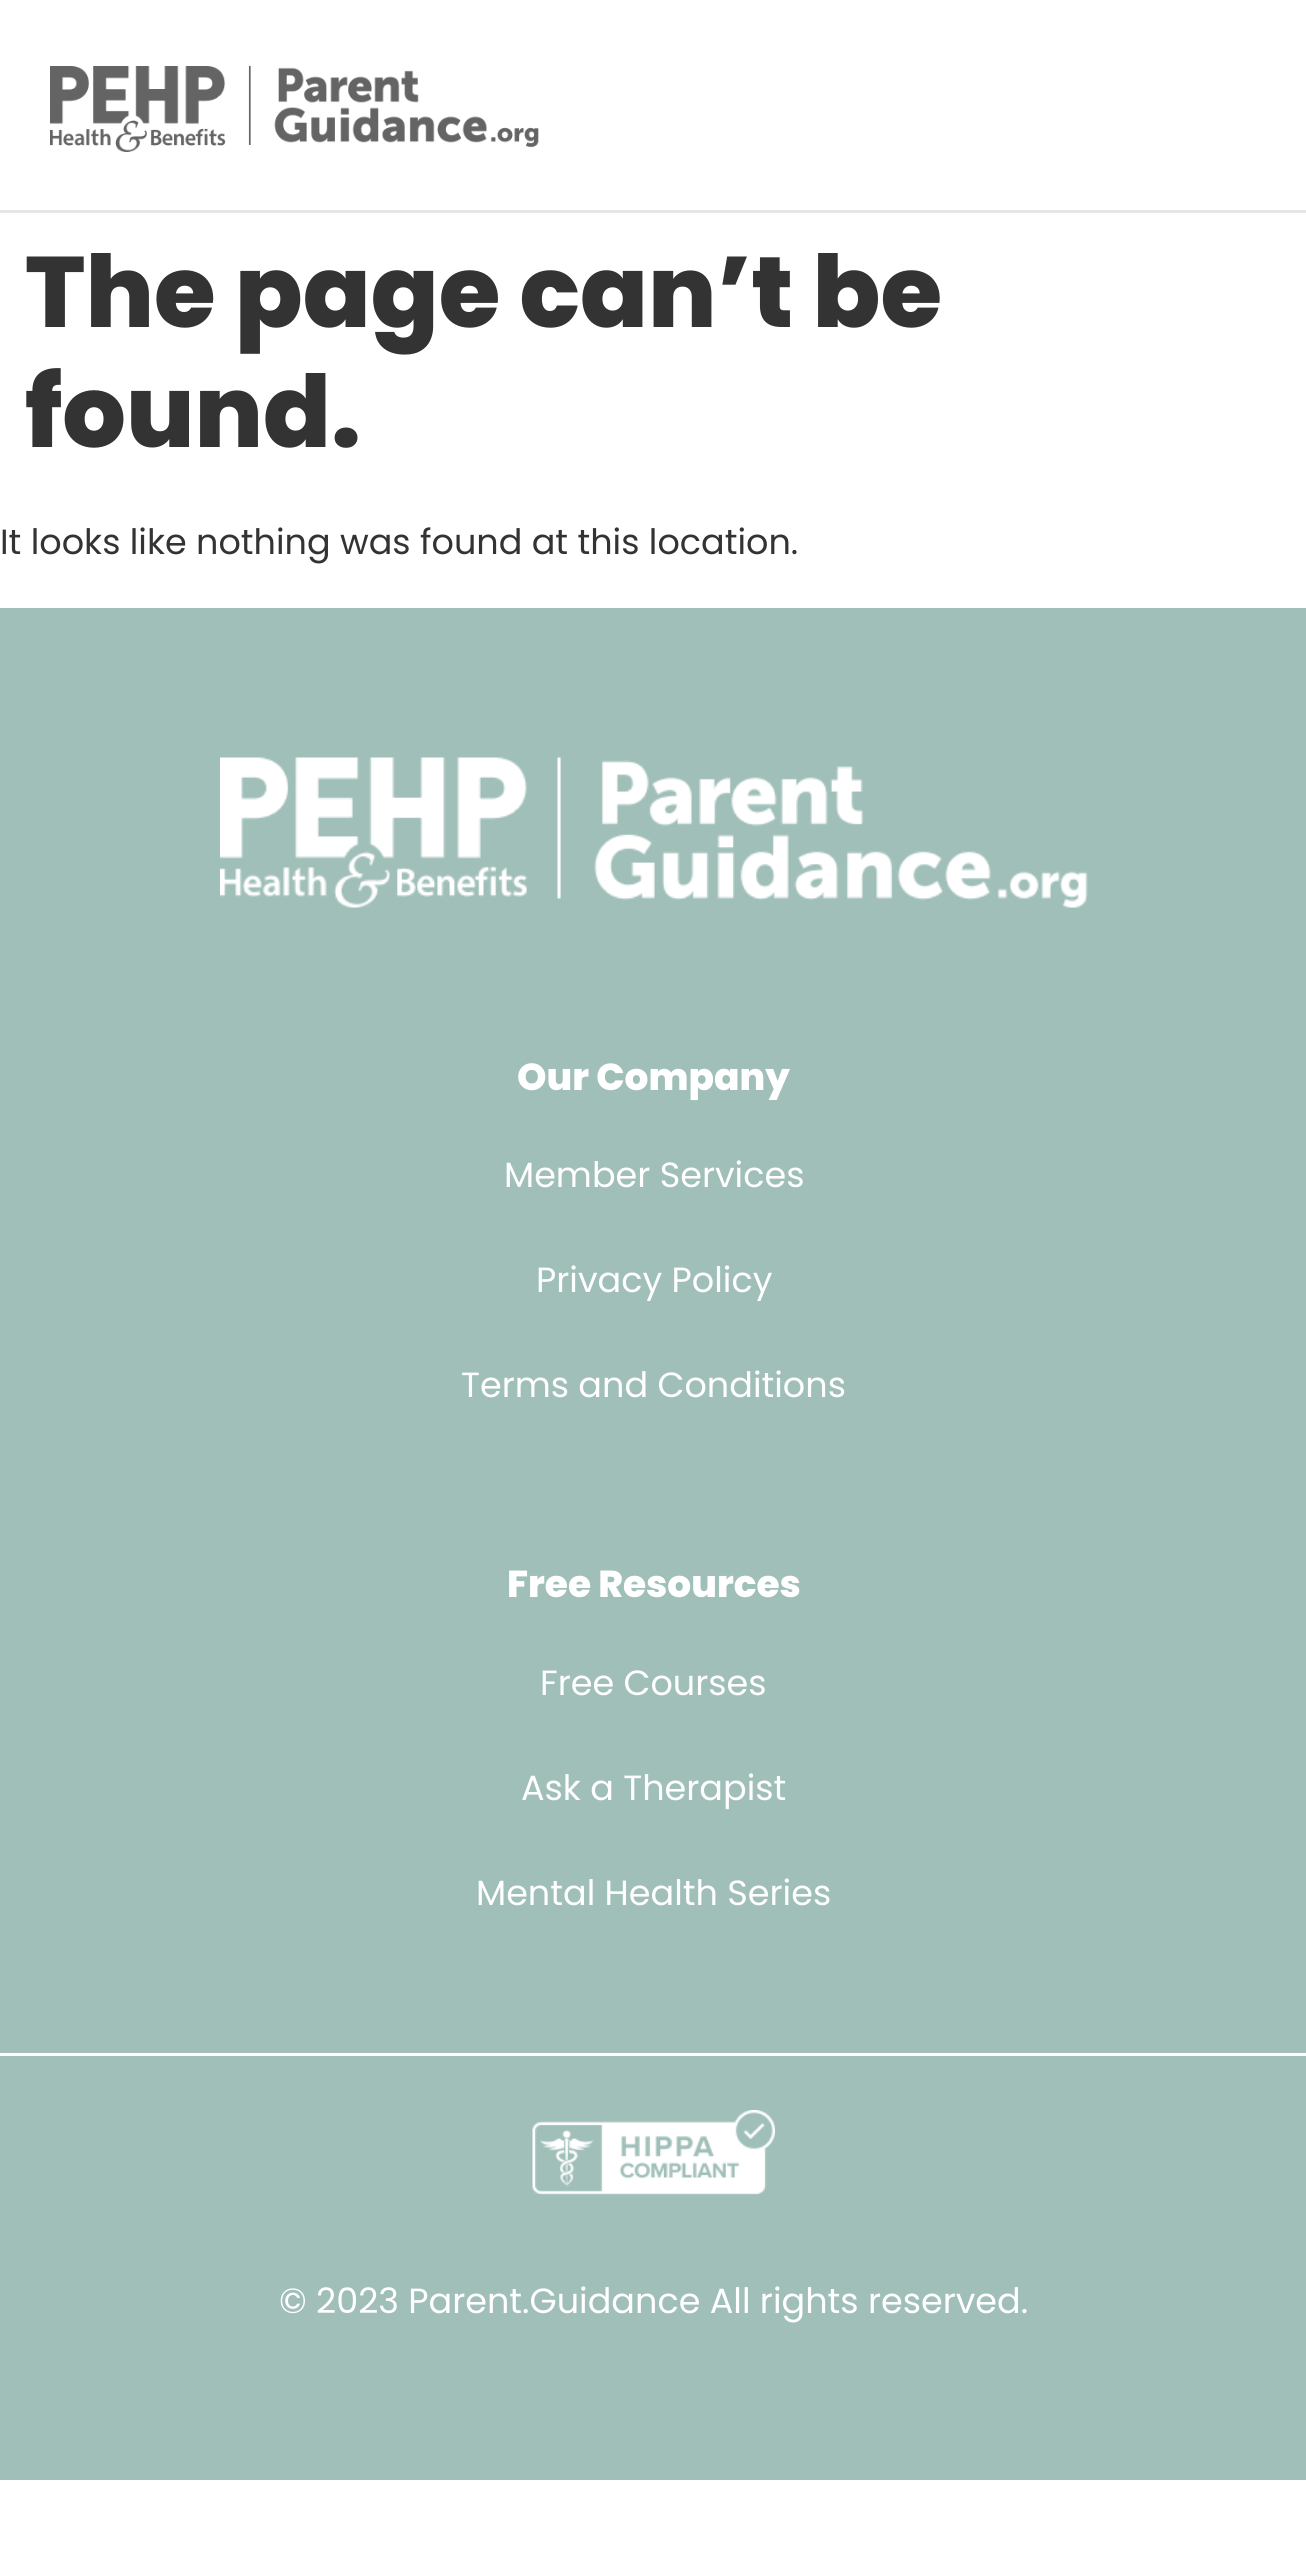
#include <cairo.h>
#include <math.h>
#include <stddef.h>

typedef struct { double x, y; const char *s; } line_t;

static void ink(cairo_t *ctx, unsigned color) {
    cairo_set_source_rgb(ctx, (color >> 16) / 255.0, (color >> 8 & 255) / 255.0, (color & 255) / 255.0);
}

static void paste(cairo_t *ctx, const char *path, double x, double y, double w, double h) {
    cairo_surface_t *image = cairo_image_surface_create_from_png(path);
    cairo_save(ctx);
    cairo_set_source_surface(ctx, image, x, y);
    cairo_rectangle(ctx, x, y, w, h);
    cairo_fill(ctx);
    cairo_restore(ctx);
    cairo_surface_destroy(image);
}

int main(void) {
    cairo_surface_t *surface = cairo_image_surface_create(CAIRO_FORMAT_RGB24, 1306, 2561);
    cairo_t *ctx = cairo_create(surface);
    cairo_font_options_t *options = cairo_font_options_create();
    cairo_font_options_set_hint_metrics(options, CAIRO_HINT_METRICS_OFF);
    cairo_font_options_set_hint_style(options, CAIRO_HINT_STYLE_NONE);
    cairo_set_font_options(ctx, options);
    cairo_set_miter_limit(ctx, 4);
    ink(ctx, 0xFFFFFF);
    cairo_paint(ctx);
    ink(ctx, 0xE6E6E6);
    cairo_rectangle(ctx, 0, 210, 1306, 3);
    cairo_fill(ctx);
    paste(ctx, "media/1.png", 50, 66, 489, 86);
    cairo_select_font_face(ctx, "Poppins ExtraBold", CAIRO_FONT_SLANT_NORMAL, CAIRO_FONT_WEIGHT_NORMAL);
    cairo_set_font_size(ctx, 100);
    ink(ctx, 0x333333);
    cairo_move_to(ctx, 25, 327);
    cairo_show_text(ctx, "The page can’t be");
    cairo_move_to(ctx, 25, 447);
    cairo_show_text(ctx, "found.");
    cairo_select_font_face(ctx, "Poppins", CAIRO_FONT_SLANT_NORMAL, CAIRO_FONT_WEIGHT_NORMAL);
    cairo_set_font_size(ctx, 35);
    cairo_move_to(ctx, 0, 554);
    cairo_show_text(ctx, "It looks like nothing was found at this location.");
    ink(ctx, 0xA1BFB9);
    cairo_rectangle(ctx, 0, 608, 1306, 1872);
    cairo_fill(ctx);
    paste(ctx, "media/2.png", 220, 757, 868, 151);
    cairo_select_font_face(ctx, "Poppins ExtraBold", CAIRO_FONT_SLANT_NORMAL, CAIRO_FONT_WEIGHT_NORMAL);
    cairo_set_font_size(ctx, 37.5);
    ink(ctx, 0xFFFFFF);
    cairo_move_to(ctx, 517, 1090);
    cairo_show_text(ctx, "Our Company");
    cairo_select_font_face(ctx, "Poppins", CAIRO_FONT_SLANT_NORMAL, CAIRO_FONT_WEIGHT_NORMAL);
    cairo_set_font_size(ctx, 35);
    {
        static const line_t items[] = {
            {504, 1187, "Member Services"},
            {536, 1292, "Privacy Policy"},
            {461, 1397, "Terms and Conditions"},
        };
        for (size_t i = 0; i < sizeof items / sizeof *items; i++) {
            cairo_move_to(ctx, items[i].x, items[i].y);
            cairo_show_text(ctx, items[i].s);
        }
    }
    cairo_select_font_face(ctx, "Poppins ExtraBold", CAIRO_FONT_SLANT_NORMAL, CAIRO_FONT_WEIGHT_NORMAL);
    cairo_set_font_size(ctx, 37.5);
    cairo_move_to(ctx, 507, 1597);
    cairo_show_text(ctx, "Free Resources");
    cairo_select_font_face(ctx, "Poppins", CAIRO_FONT_SLANT_NORMAL, CAIRO_FONT_WEIGHT_NORMAL);
    cairo_set_font_size(ctx, 35);
    {
        static const line_t items[] = {
            {540, 1695, "Free Courses"},
            {521, 1800, "Ask a Therapist"},
            {476, 1905, "Mental Health Series"},
        };
        for (size_t i = 0; i < sizeof items / sizeof *items; i++) {
            cairo_move_to(ctx, items[i].x, items[i].y);
            cairo_show_text(ctx, items[i].s);
        }
    }
    cairo_rectangle(ctx, 0, 2053, 1306, 3);
    cairo_fill(ctx);
    paste(ctx, "media/3.png", 532, 2110, 243, 85);
    cairo_move_to(ctx, 279, 2313);
    cairo_show_text(ctx, "© 2023 Parent.Guidance All rights reserved.");
    cairo_surface_write_to_png(surface, "image.png");
    cairo_font_options_destroy(options);
    cairo_destroy(ctx);
    cairo_surface_destroy(surface);
    return 0;
}
